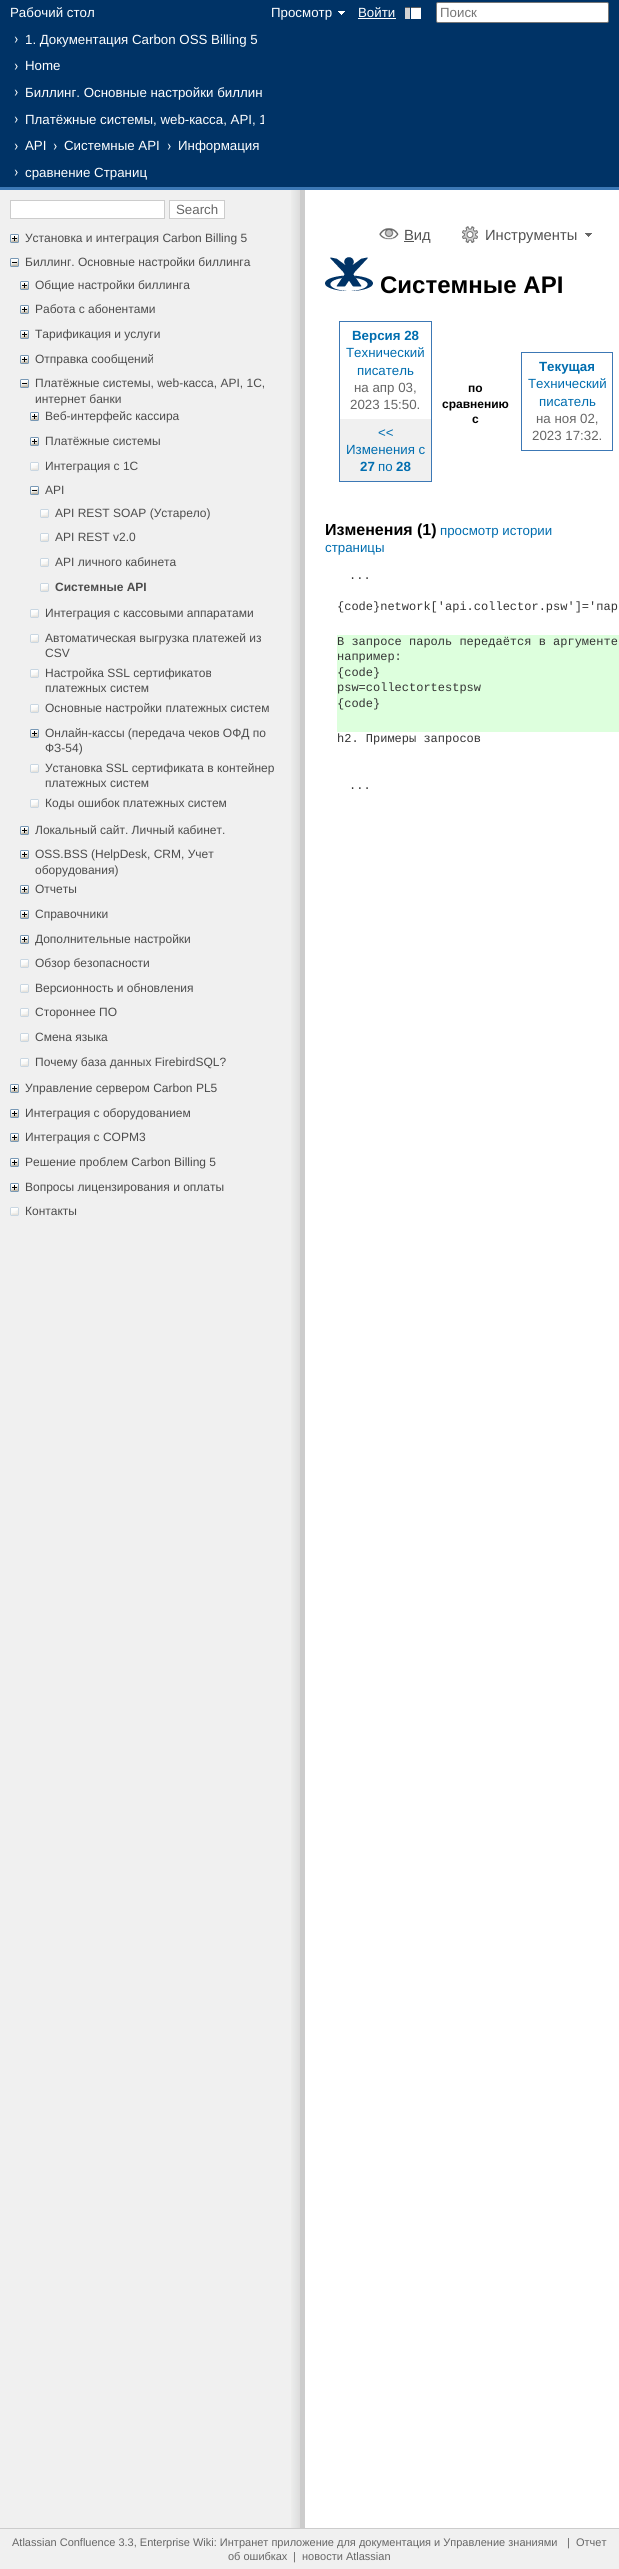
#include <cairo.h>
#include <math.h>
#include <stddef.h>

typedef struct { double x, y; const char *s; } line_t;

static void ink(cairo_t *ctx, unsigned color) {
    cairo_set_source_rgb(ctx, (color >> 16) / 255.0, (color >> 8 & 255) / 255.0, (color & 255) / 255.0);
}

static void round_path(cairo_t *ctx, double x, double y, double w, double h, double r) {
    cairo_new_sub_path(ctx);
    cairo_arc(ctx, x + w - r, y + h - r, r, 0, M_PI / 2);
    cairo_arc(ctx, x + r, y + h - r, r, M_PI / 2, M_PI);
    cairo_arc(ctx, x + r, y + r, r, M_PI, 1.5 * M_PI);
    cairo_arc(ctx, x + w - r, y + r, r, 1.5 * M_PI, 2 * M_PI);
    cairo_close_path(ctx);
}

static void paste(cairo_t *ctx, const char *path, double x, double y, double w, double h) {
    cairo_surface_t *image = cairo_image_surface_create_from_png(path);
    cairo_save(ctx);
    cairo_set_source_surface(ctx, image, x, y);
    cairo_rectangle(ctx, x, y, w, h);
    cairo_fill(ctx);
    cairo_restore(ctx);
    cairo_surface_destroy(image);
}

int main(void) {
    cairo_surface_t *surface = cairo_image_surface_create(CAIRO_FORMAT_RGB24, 619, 2569);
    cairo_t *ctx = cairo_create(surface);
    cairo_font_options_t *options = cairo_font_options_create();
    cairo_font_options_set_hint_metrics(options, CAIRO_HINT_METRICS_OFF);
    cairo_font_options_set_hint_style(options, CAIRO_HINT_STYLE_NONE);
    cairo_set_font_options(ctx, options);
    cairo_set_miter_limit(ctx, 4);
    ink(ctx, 0xFFFFFF);
    cairo_paint(ctx);
    ink(ctx, 0x003366);
    cairo_rectangle(ctx, 0, 0, 619, 187);
    cairo_fill(ctx);
    ink(ctx, 0x3C78B5);
    cairo_rectangle(ctx, 0, 187, 619, 3);
    cairo_fill(ctx);
    cairo_select_font_face(ctx, "Liberation Sans", CAIRO_FONT_SLANT_NORMAL, CAIRO_FONT_WEIGHT_NORMAL);
    cairo_set_font_size(ctx, 13.3);
    ink(ctx, 0xFFFFFF);
    cairo_move_to(ctx, 10, 17);
    cairo_show_text(ctx, "Рабочий стол");
    paste(ctx, "media/1.png", 14, 36, 4, 7);
    cairo_move_to(ctx, 25, 44);
    cairo_show_text(ctx, "1. Документация Carbon OSS Billing 5");
    paste(ctx, "media/1.png", 14, 63, 4, 7);
    cairo_move_to(ctx, 25, 70);
    cairo_show_text(ctx, "Home");
    paste(ctx, "media/1.png", 14, 89, 4, 7);
    cairo_move_to(ctx, 25, 97);
    cairo_show_text(ctx, "Биллинг. Основные настройки биллин");
    paste(ctx, "media/1.png", 14, 116, 4, 7);
    cairo_save(ctx);
    cairo_rectangle(ctx, 10, 0, 254, 187);
    cairo_clip(ctx);
    cairo_move_to(ctx, 25, 124);
    cairo_show_text(ctx, "Платёжные системы, web-касса, API, 1");
    cairo_restore(ctx);
    paste(ctx, "media/1.png", 14, 143, 4, 7);
    cairo_move_to(ctx, 25, 150);
    cairo_show_text(ctx, "API");
    paste(ctx, "media/1.png", 53, 143, 4, 7);
    cairo_move_to(ctx, 64, 150);
    cairo_show_text(ctx, "Системные API");
    paste(ctx, "media/1.png", 167, 143, 4, 7);
    cairo_move_to(ctx, 178, 150);
    cairo_show_text(ctx, "Информация");
    paste(ctx, "media/1.png", 14, 169, 4, 7);
    cairo_move_to(ctx, 25, 177);
    cairo_show_text(ctx, "сравнение Страниц");
    paste(ctx, "media/2.png", 338, 11, 7, 4);
    cairo_move_to(ctx, 271, 17);
    cairo_show_text(ctx, "Просмотр");
    cairo_move_to(ctx, 358, 17);
    cairo_show_text(ctx, "Войти");
    cairo_rectangle(ctx, 358, 18, 38, 1);
    cairo_fill(ctx);
    paste(ctx, "media/3.png", 405, 7, 16, 12);
    round_path(ctx, 436.5, 2.5, 172, 20, 1.5);
    cairo_fill_preserve(ctx);
    ink(ctx, 0x767676);
    cairo_set_line_width(ctx, 1);
    cairo_stroke(ctx);
    ink(ctx, 0x757575);
    cairo_move_to(ctx, 440, 17);
    cairo_show_text(ctx, "Поиск");
    ink(ctx, 0xF0F0F0);
    cairo_rectangle(ctx, 0, 190, 291, 2338);
    cairo_fill(ctx);
    paste(ctx, "media/4.png", 291, 190, 9, 2338);
    ink(ctx, 0xFFFFFF);
    cairo_rectangle(ctx, 10.5, 200.5, 154, 18);
    cairo_fill_preserve(ctx);
    ink(ctx, 0xCCCCCC);
    cairo_stroke(ctx);
    ink(ctx, 0xFFFFFF);
    cairo_rectangle(ctx, 169.5, 200.5, 55, 18);
    cairo_fill_preserve(ctx);
    ink(ctx, 0xCCCCCC);
    cairo_stroke(ctx);
    ink(ctx, 0x666666);
    cairo_move_to(ctx, 176, 214);
    cairo_show_text(ctx, "Search");
    paste(ctx, "media/5.png", 10, 234, 9, 9);
    cairo_set_font_size(ctx, 12);
    ink(ctx, 0x4C4C4C);
    cairo_move_to(ctx, 25, 242);
    cairo_show_text(ctx, "Установка и интеграция Carbon Billing 5");
    paste(ctx, "media/6.png", 10, 258, 9, 9);
    cairo_move_to(ctx, 25, 266);
    cairo_show_text(ctx, "Биллинг. Основные настройки биллинга");
    paste(ctx, "media/5.png", 20, 281, 9, 9);
    cairo_move_to(ctx, 35, 289);
    cairo_show_text(ctx, "Общие настройки биллинга");
    paste(ctx, "media/5.png", 20, 305, 9, 9);
    cairo_move_to(ctx, 35, 313);
    cairo_show_text(ctx, "Работа с абонентами");
    paste(ctx, "media/5.png", 20, 330, 9, 9);
    cairo_move_to(ctx, 35, 338);
    cairo_show_text(ctx, "Тарификация и услуги");
    paste(ctx, "media/5.png", 20, 355, 9, 9);
    cairo_move_to(ctx, 35, 363);
    cairo_show_text(ctx, "Отправка сообщений");
    paste(ctx, "media/6.png", 20, 379, 9, 9);
    cairo_move_to(ctx, 35, 387);
    cairo_show_text(ctx, "Платёжные системы, web-касса, API, 1С,");
    cairo_move_to(ctx, 35, 403);
    cairo_show_text(ctx, "интернет банки");
    paste(ctx, "media/5.png", 30, 412, 9, 9);
    cairo_move_to(ctx, 45, 420);
    cairo_show_text(ctx, "Веб-интерфейс кассира");
    paste(ctx, "media/5.png", 30, 437, 9, 9);
    cairo_move_to(ctx, 45, 445);
    cairo_show_text(ctx, "Платёжные системы");
    paste(ctx, "media/7.png", 30, 462, 9, 9);
    cairo_move_to(ctx, 45, 470);
    cairo_show_text(ctx, "Интеграция с 1С");
    paste(ctx, "media/6.png", 30, 486, 9, 9);
    cairo_move_to(ctx, 45, 494);
    cairo_show_text(ctx, "API");
    paste(ctx, "media/7.png", 40, 509, 9, 9);
    cairo_move_to(ctx, 55, 517);
    cairo_show_text(ctx, "API REST SOAP (Устарело)");
    paste(ctx, "media/7.png", 40, 533, 9, 9);
    cairo_move_to(ctx, 55, 541);
    cairo_show_text(ctx, "API REST v2.0");
    paste(ctx, "media/7.png", 40, 558, 9, 9);
    cairo_move_to(ctx, 55, 566);
    cairo_show_text(ctx, "API личного кабинета");
    paste(ctx, "media/7.png", 40, 583, 9, 9);
    cairo_select_font_face(ctx, "Liberation Sans", CAIRO_FONT_SLANT_NORMAL, CAIRO_FONT_WEIGHT_BOLD);
    cairo_move_to(ctx, 55, 591);
    cairo_show_text(ctx, "Системные API");
    paste(ctx, "media/7.png", 30, 609, 9, 9);
    cairo_select_font_face(ctx, "Liberation Sans", CAIRO_FONT_SLANT_NORMAL, CAIRO_FONT_WEIGHT_NORMAL);
    cairo_move_to(ctx, 45, 617);
    cairo_show_text(ctx, "Интеграция с кассовыми аппаратами");
    paste(ctx, "media/7.png", 30, 634, 9, 9);
    cairo_move_to(ctx, 45, 642);
    cairo_show_text(ctx, "Автоматическая выгрузка платежей из");
    cairo_move_to(ctx, 45, 657);
    cairo_show_text(ctx, "CSV");
    paste(ctx, "media/7.png", 30, 669, 9, 9);
    cairo_move_to(ctx, 45, 677);
    cairo_show_text(ctx, "Настройка SSL сертификатов");
    cairo_move_to(ctx, 45, 692);
    cairo_show_text(ctx, "платежных систем");
    paste(ctx, "media/7.png", 30, 704, 9, 9);
    cairo_move_to(ctx, 45, 712);
    cairo_show_text(ctx, "Основные настройки платежных систем");
    paste(ctx, "media/5.png", 30, 729, 9, 9);
    cairo_move_to(ctx, 45, 737);
    cairo_show_text(ctx, "Онлайн-кассы (передача чеков ОФД по");
    cairo_move_to(ctx, 45, 752);
    cairo_show_text(ctx, "ФЗ-54)");
    paste(ctx, "media/7.png", 30, 764, 9, 9);
    cairo_move_to(ctx, 45, 772);
    cairo_show_text(ctx, "Установка SSL сертификата в контейнер");
    cairo_move_to(ctx, 45, 787);
    cairo_show_text(ctx, "платежных систем");
    paste(ctx, "media/7.png", 30, 799, 9, 9);
    cairo_move_to(ctx, 45, 807);
    cairo_show_text(ctx, "Коды ошибок платежных систем");
    paste(ctx, "media/5.png", 20, 826, 9, 9);
    cairo_move_to(ctx, 35, 834);
    cairo_show_text(ctx, "Локальный сайт. Личный кабинет.");
    paste(ctx, "media/5.png", 20, 850, 9, 9);
    cairo_move_to(ctx, 35, 858);
    cairo_show_text(ctx, "OSS.BSS (HelpDesk, CRM, Учет");
    cairo_move_to(ctx, 35, 874);
    cairo_show_text(ctx, "оборудования)");
    paste(ctx, "media/5.png", 20, 885, 9, 9);
    cairo_move_to(ctx, 35, 893);
    cairo_show_text(ctx, "Отчеты");
    paste(ctx, "media/5.png", 20, 910, 9, 9);
    cairo_move_to(ctx, 35, 918);
    cairo_show_text(ctx, "Справочники");
    paste(ctx, "media/5.png", 20, 935, 9, 9);
    cairo_move_to(ctx, 35, 943);
    cairo_show_text(ctx, "Дополнительные настройки");
    paste(ctx, "media/7.png", 20, 959, 9, 9);
    cairo_move_to(ctx, 35, 967);
    cairo_show_text(ctx, "Обзор безопасности");
    paste(ctx, "media/7.png", 20, 984, 9, 9);
    cairo_move_to(ctx, 35, 992);
    cairo_show_text(ctx, "Версионность и обновления");
    paste(ctx, "media/7.png", 20, 1008, 9, 9);
    cairo_move_to(ctx, 35, 1016);
    cairo_show_text(ctx, "Стороннее ПО");
    paste(ctx, "media/7.png", 20, 1033, 9, 9);
    cairo_move_to(ctx, 35, 1041);
    cairo_show_text(ctx, "Смена языка");
    paste(ctx, "media/7.png", 20, 1058, 9, 9);
    cairo_move_to(ctx, 35, 1066);
    cairo_show_text(ctx, "Почему база данных FirebirdSQL?");
    paste(ctx, "media/5.png", 10, 1084, 9, 9);
    cairo_move_to(ctx, 25, 1092);
    cairo_show_text(ctx, "Управление сервером Carbon PL5");
    paste(ctx, "media/5.png", 10, 1109, 9, 9);
    cairo_move_to(ctx, 25, 1117);
    cairo_show_text(ctx, "Интеграция с оборудованием");
    paste(ctx, "media/5.png", 10, 1133, 9, 9);
    cairo_move_to(ctx, 25, 1141);
    cairo_show_text(ctx, "Интеграция с СОРМ3");
    paste(ctx, "media/5.png", 10, 1158, 9, 9);
    cairo_move_to(ctx, 25, 1166);
    cairo_show_text(ctx, "Решение проблем Carbon Billing 5");
    paste(ctx, "media/5.png", 10, 1183, 9, 9);
    cairo_move_to(ctx, 25, 1191);
    cairo_show_text(ctx, "Вопросы лицензирования и оплаты");
    paste(ctx, "media/7.png", 10, 1207, 9, 9);
    cairo_move_to(ctx, 25, 1215);
    cairo_show_text(ctx, "Контакты");
    ink(ctx, 0xCCCCCC);
    cairo_rectangle(ctx, 300, 190, 5, 2338);
    cairo_fill(ctx);
    paste(ctx, "media/8.png", 379, 228, 20, 12);
    ink(ctx, 0x535353);
    cairo_rectangle(ctx, 404, 241, 10, 1);
    cairo_fill(ctx);
    cairo_set_font_size(ctx, 14.75);
    cairo_move_to(ctx, 404, 240);
    cairo_show_text(ctx, "Вид");
    paste(ctx, "media/9.png", 585, 233, 7, 4);
    paste(ctx, "media/10.png", 462, 226, 16, 17);
    cairo_move_to(ctx, 485, 240);
    cairo_show_text(ctx, "Инструменты");
    paste(ctx, "media/11.png", 325, 257, 48, 34);
    cairo_select_font_face(ctx, "Liberation Sans", CAIRO_FONT_SLANT_NORMAL, CAIRO_FONT_WEIGHT_BOLD);
    cairo_set_font_size(ctx, 24);
    ink(ctx, 0x000000);
    cairo_move_to(ctx, 380, 293);
    cairo_show_text(ctx, "Системные API");
    cairo_rectangle(ctx, 339.5, 321.5, 92, 160);
    ink(ctx, 0x3C78B5);
    cairo_stroke(ctx);
    cairo_set_font_size(ctx, 13.3);
    ink(ctx, 0x006DAF);
    cairo_move_to(ctx, 352, 340);
    cairo_show_text(ctx, "Версия 28");
    cairo_select_font_face(ctx, "Liberation Sans", CAIRO_FONT_SLANT_NORMAL, CAIRO_FONT_WEIGHT_NORMAL);
    cairo_move_to(ctx, 346, 357);
    cairo_show_text(ctx, "Технический");
    cairo_move_to(ctx, 357, 375);
    cairo_show_text(ctx, "писатель");
    ink(ctx, 0x666666);
    cairo_move_to(ctx, 354, 392);
    cairo_show_text(ctx, "на апр 03,");
    cairo_move_to(ctx, 350, 409);
    cairo_show_text(ctx, "2023 15:50.");
    ink(ctx, 0xF0F0F0);
    cairo_rectangle(ctx, 340, 419, 91, 62);
    cairo_fill(ctx);
    ink(ctx, 0x006DAF);
    cairo_move_to(ctx, 378, 437);
    cairo_show_text(ctx, "<<");
    cairo_move_to(ctx, 346, 454);
    cairo_show_text(ctx, "Изменения с");
    cairo_select_font_face(ctx, "Liberation Sans", CAIRO_FONT_SLANT_NORMAL, CAIRO_FONT_WEIGHT_BOLD);
    cairo_move_to(ctx, 360, 471);
    cairo_show_text(ctx, "27");
    cairo_select_font_face(ctx, "Liberation Sans", CAIRO_FONT_SLANT_NORMAL, CAIRO_FONT_WEIGHT_NORMAL);
    cairo_move_to(ctx, 378, 471);
    cairo_show_text(ctx, "по");
    cairo_select_font_face(ctx, "Liberation Sans", CAIRO_FONT_SLANT_NORMAL, CAIRO_FONT_WEIGHT_BOLD);
    cairo_move_to(ctx, 396, 471);
    cairo_show_text(ctx, "28");
    cairo_set_font_size(ctx, 12);
    ink(ctx, 0x000000);
    {
        static const line_t items[] = {
            {468, 392, "по"},
            {442, 408, "сравнению"},
            {472, 423, "с"},
        };
        for (size_t i = 0; i < sizeof items / sizeof *items; i++) {
            cairo_move_to(ctx, items[i].x, items[i].y);
            cairo_show_text(ctx, items[i].s);
        }
    }
    cairo_rectangle(ctx, 521.5, 352.5, 91, 98);
    ink(ctx, 0x3C78B5);
    cairo_stroke(ctx);
    cairo_set_font_size(ctx, 13.3);
    ink(ctx, 0x006DAF);
    cairo_move_to(ctx, 539, 371);
    cairo_show_text(ctx, "Текущая");
    cairo_select_font_face(ctx, "Liberation Sans", CAIRO_FONT_SLANT_NORMAL, CAIRO_FONT_WEIGHT_NORMAL);
    cairo_move_to(ctx, 528, 388);
    cairo_show_text(ctx, "Технический");
    cairo_move_to(ctx, 539, 406);
    cairo_show_text(ctx, "писатель");
    ink(ctx, 0x666666);
    cairo_move_to(ctx, 536, 423);
    cairo_show_text(ctx, "на ноя 02,");
    cairo_move_to(ctx, 532, 440);
    cairo_show_text(ctx, "2023 17:32.");
    cairo_select_font_face(ctx, "Liberation Sans", CAIRO_FONT_SLANT_NORMAL, CAIRO_FONT_WEIGHT_BOLD);
    cairo_set_font_size(ctx, 16);
    ink(ctx, 0x000000);
    cairo_move_to(ctx, 325, 535);
    cairo_show_text(ctx, "Изменения (1)");
    cairo_select_font_face(ctx, "Liberation Sans", CAIRO_FONT_SLANT_NORMAL, CAIRO_FONT_WEIGHT_NORMAL);
    cairo_set_font_size(ctx, 13.3);
    ink(ctx, 0x006DAF);
    cairo_move_to(ctx, 440, 535);
    cairo_show_text(ctx, "просмотр истории");
    cairo_move_to(ctx, 325, 552);
    cairo_show_text(ctx, "страницы");
    cairo_select_font_face(ctx, "Liberation Mono", CAIRO_FONT_SLANT_NORMAL, CAIRO_FONT_WEIGHT_NORMAL);
    cairo_set_font_size(ctx, 12);
    ink(ctx, 0x333333);
    cairo_move_to(ctx, 349, 579);
    cairo_show_text(ctx, "...");
    cairo_move_to(ctx, 337, 610);
    cairo_show_text(ctx, "{code}network['api.collector.psw']='пар");
    ink(ctx, 0xDDFFDD);
    cairo_rectangle(ctx, 337, 635, 282, 97);
    cairo_fill(ctx);
    ink(ctx, 0x333333);
    {
        static const line_t items[] = {
            {337, 645, "В запросе пароль передаётся в аргументе"},
            {337, 660, "например:"},
            {337, 676, "{code}"},
            {337, 691, "psw=collectortestpsw"},
            {337, 707, "{code}"},
            {337, 742, "h2. Примеры запросов"},
            {349, 789, "..."},
        };
        for (size_t i = 0; i < sizeof items / sizeof *items; i++) {
            cairo_move_to(ctx, items[i].x, items[i].y);
            cairo_show_text(ctx, items[i].s);
        }
    }
    ink(ctx, 0xF0F0F0);
    cairo_rectangle(ctx, 0, 2529, 619, 40);
    cairo_fill(ctx);
    ink(ctx, 0xCCCCCC);
    cairo_rectangle(ctx, 0, 2528, 619, 1);
    cairo_fill(ctx);
    cairo_select_font_face(ctx, "Liberation Sans", CAIRO_FONT_SLANT_NORMAL, CAIRO_FONT_WEIGHT_NORMAL);
    cairo_set_font_size(ctx, 11);
    ink(ctx, 0x666666);
    {
        static const line_t items[] = {
            {12, 2546, "Atlassian Confluence 3.3, Enterprise Wiki: Интранет приложение для документация и Управление знаниями"},
            {567, 2546, "|"},
            {576, 2546, "Отчет"},
            {228, 2560, "об ошибках"},
            {293, 2560, "|"},
            {302, 2560, "новости Atlassian"},
        };
        for (size_t i = 0; i < sizeof items / sizeof *items; i++) {
            cairo_move_to(ctx, items[i].x, items[i].y);
            cairo_show_text(ctx, items[i].s);
        }
    }
    cairo_surface_write_to_png(surface, "image.png");
    cairo_font_options_destroy(options);
    cairo_destroy(ctx);
    cairo_surface_destroy(surface);
    return 0;
}
